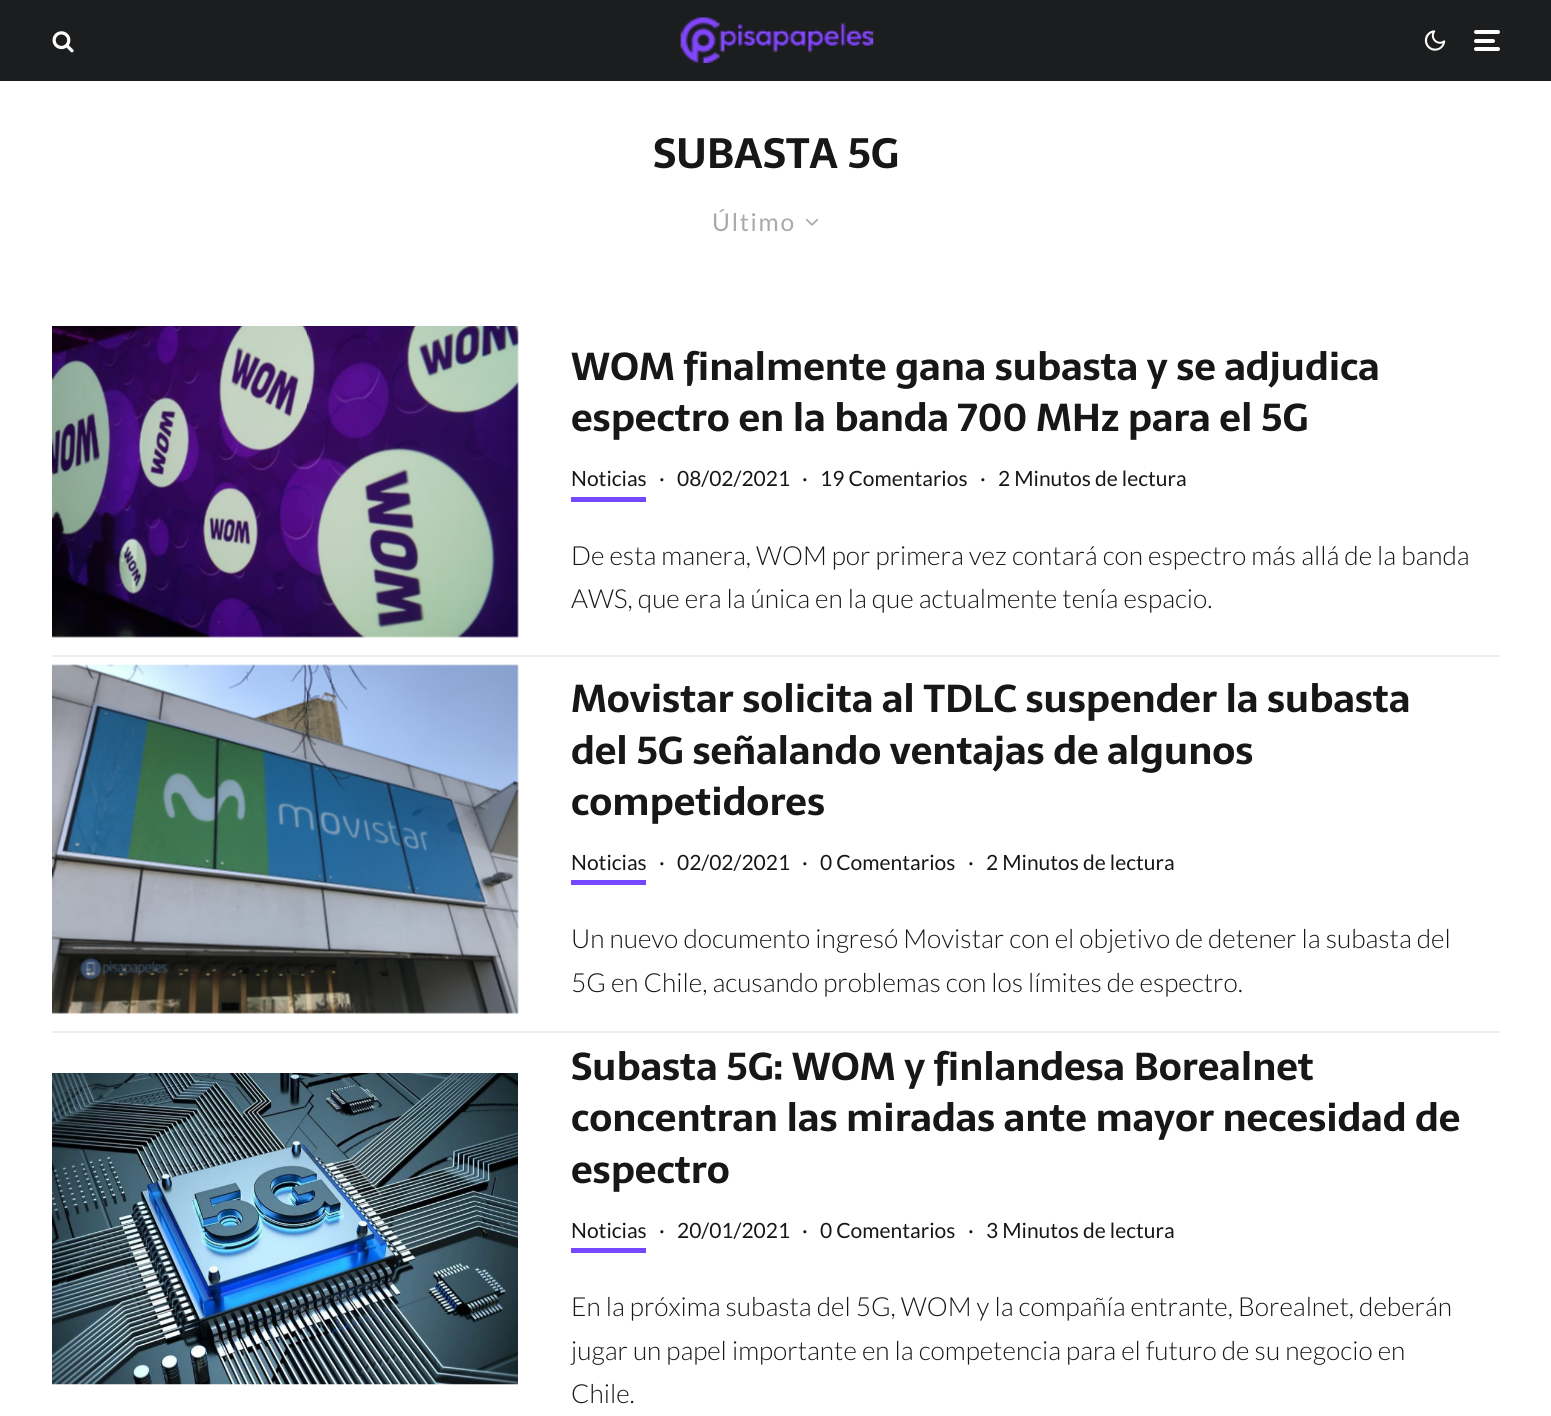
#include <cairo.h>
#include <math.h>
#include <stddef.h>

typedef struct { double x, y; const char *s; } line_t;

static void ink(cairo_t *ctx, unsigned color) {
    cairo_set_source_rgb(ctx, (color >> 16) / 255.0, (color >> 8 & 255) / 255.0, (color & 255) / 255.0);
}

static void write_spaced(cairo_t *ctx, double x, double y, const char *s, double letter, double word) {
    cairo_move_to(ctx, x, y);
    while (*s) {
        char ch[5] = {0};
        int n = 0;
        do ch[n++] = *s++; while ((*s & 0xC0) == 0x80);
        cairo_show_text(ctx, ch);
        cairo_rel_move_to(ctx, letter + word * (*ch == ' '), 0);
    }
}

static void round_path(cairo_t *ctx, double x, double y, double w, double h, double r) {
    cairo_new_sub_path(ctx);
    cairo_arc(ctx, x + w - r, y + h - r, r, 0, M_PI / 2);
    cairo_arc(ctx, x + r, y + h - r, r, M_PI / 2, M_PI);
    cairo_arc(ctx, x + r, y + r, r, M_PI, 1.5 * M_PI);
    cairo_arc(ctx, x + w - r, y + r, r, 1.5 * M_PI, 2 * M_PI);
    cairo_close_path(ctx);
}

static void paste(cairo_t *ctx, const char *path, double x, double y, double w, double h) {
    cairo_surface_t *image = cairo_image_surface_create_from_png(path);
    cairo_save(ctx);
    cairo_set_source_surface(ctx, image, x, y);
    cairo_rectangle(ctx, x, y, w, h);
    cairo_fill(ctx);
    cairo_restore(ctx);
    cairo_surface_destroy(image);
}

int main(void) {
    cairo_surface_t *surface = cairo_image_surface_create(CAIRO_FORMAT_RGB24, 1551, 1416);
    cairo_t *ctx = cairo_create(surface);
    cairo_font_options_t *options = cairo_font_options_create();
    cairo_font_options_set_hint_metrics(options, CAIRO_HINT_METRICS_OFF);
    cairo_font_options_set_hint_style(options, CAIRO_HINT_STYLE_NONE);
    cairo_set_font_options(ctx, options);
    cairo_set_miter_limit(ctx, 4);
    ink(ctx, 0xFFFFFF);
    cairo_paint(ctx);
    ink(ctx, 0x1C1D1E);
    cairo_rectangle(ctx, 0, 0, 1551, 81);
    cairo_fill(ctx);
    paste(ctx, "media/1.png", 52, 31, 22, 22);
    paste(ctx, "media/2.png", 680, 17, 194, 46);
    paste(ctx, "media/3.png", 1424, 30, 22, 21);
    ink(ctx, 0xFFFFFF);
    round_path(ctx, 1474, 39, 21, 4, 2);
    cairo_fill(ctx);
    round_path(ctx, 1474, 30, 26, 4, 2);
    cairo_fill(ctx);
    round_path(ctx, 1474, 47, 26, 4, 2);
    cairo_fill(ctx);
    cairo_select_font_face(ctx, "Sarala", CAIRO_FONT_SLANT_NORMAL, CAIRO_FONT_WEIGHT_BOLD);
    cairo_set_font_size(ctx, 42);
    ink(ctx, 0x171717);
    cairo_move_to(ctx, 653, 168);
    cairo_show_text(ctx, "SUBASTA 5G");
    cairo_select_font_face(ctx, "Lato", CAIRO_FONT_SLANT_NORMAL, CAIRO_FONT_WEIGHT_NORMAL);
    cairo_set_font_size(ctx, 24.5);
    ink(ctx, 0xAAAAAA);
    write_spaced(ctx, 712, 231, "Último", 1.75, 0);
    paste(ctx, "media/4.png", 806, 218, 12, 8);
    ink(ctx, 0xEFE9F4);
    cairo_rectangle(ctx, 53, 655, 1447, 2);
    cairo_fill(ctx);
    ink(ctx, 0xEEEEEE);
    cairo_rectangle(ctx, 53, 326, 465, 311);
    cairo_fill(ctx);
    paste(ctx, "media/5.png", 52, 326, 467, 312);
    cairo_select_font_face(ctx, "Sarala", CAIRO_FONT_SLANT_NORMAL, CAIRO_FONT_WEIGHT_BOLD);
    cairo_set_font_size(ctx, 38.5);
    ink(ctx, 0x171717);
    cairo_move_to(ctx, 571, 380);
    cairo_show_text(ctx, "WOM finalmente gana subasta y se adjudica");
    cairo_move_to(ctx, 571, 431);
    cairo_show_text(ctx, "espectro en la banda 700 MHz para el 5G");
    ink(ctx, 0x7448FF);
    cairo_rectangle(ctx, 571, 497, 75, 5);
    cairo_fill(ctx);
    cairo_select_font_face(ctx, "Lato", CAIRO_FONT_SLANT_NORMAL, CAIRO_FONT_WEIGHT_NORMAL);
    cairo_set_font_size(ctx, 21);
    ink(ctx, 0x171717);
    {
        static const line_t items[] = {
            {571, 486, "Noticias"},
            {659, 486, "·"},
            {677, 486, "08/02/2021"},
            {802, 486, "·"},
            {820, 486, "19 Comentarios"},
            {980, 486, "·"},
            {998, 486, "2 Minutos de lectura"},
        };
        for (size_t i = 0; i < sizeof items / sizeof *items; i++) {
            cairo_move_to(ctx, items[i].x, items[i].y);
            cairo_show_text(ctx, items[i].s);
        }
    }
    cairo_select_font_face(ctx, "Lato Light", CAIRO_FONT_SLANT_NORMAL, CAIRO_FONT_WEIGHT_NORMAL);
    cairo_set_font_size(ctx, 26.25);
    cairo_move_to(ctx, 571, 565);
    cairo_show_text(ctx, "De esta manera, WOM por primera vez contará con espectro más allá de la banda");
    cairo_move_to(ctx, 571, 608);
    cairo_show_text(ctx, "AWS, que era la única en la que actualmente tenía espacio.");
    ink(ctx, 0xEFE9F4);
    cairo_rectangle(ctx, 53, 1031, 1447, 2);
    cairo_fill(ctx);
    ink(ctx, 0xEEEEEE);
    cairo_rectangle(ctx, 53, 665, 465, 348);
    cairo_fill(ctx);
    paste(ctx, "media/6.png", 52, 664, 467, 350);
    cairo_select_font_face(ctx, "Sarala", CAIRO_FONT_SLANT_NORMAL, CAIRO_FONT_WEIGHT_BOLD);
    cairo_set_font_size(ctx, 38.5);
    ink(ctx, 0x171717);
    {
        static const line_t items[] = {
            {571, 712, "Movistar solicita al TDLC suspender la subasta"},
            {571, 764, "del 5G señalando ventajas de algunos"},
            {571, 815, "competidores"},
        };
        for (size_t i = 0; i < sizeof items / sizeof *items; i++) {
            cairo_move_to(ctx, items[i].x, items[i].y);
            cairo_show_text(ctx, items[i].s);
        }
    }
    ink(ctx, 0x7448FF);
    cairo_rectangle(ctx, 571, 880, 75, 5);
    cairo_fill(ctx);
    cairo_select_font_face(ctx, "Lato", CAIRO_FONT_SLANT_NORMAL, CAIRO_FONT_WEIGHT_NORMAL);
    cairo_set_font_size(ctx, 21);
    ink(ctx, 0x171717);
    {
        static const line_t items[] = {
            {571, 870, "Noticias"},
            {659, 870, "·"},
            {677, 870, "02/02/2021"},
            {802, 870, "·"},
            {820, 870, "0 Comentarios"},
            {968, 870, "·"},
            {986, 870, "2 Minutos de lectura"},
        };
        for (size_t i = 0; i < sizeof items / sizeof *items; i++) {
            cairo_move_to(ctx, items[i].x, items[i].y);
            cairo_show_text(ctx, items[i].s);
        }
    }
    cairo_select_font_face(ctx, "Lato Light", CAIRO_FONT_SLANT_NORMAL, CAIRO_FONT_WEIGHT_NORMAL);
    cairo_set_font_size(ctx, 26.25);
    cairo_move_to(ctx, 571, 948);
    cairo_show_text(ctx, "Un nuevo documento ingresó Movistar con el objetivo de detener la subasta del");
    cairo_move_to(ctx, 571, 992);
    cairo_show_text(ctx, "5G en Chile, acusando problemas con los límites de espectro.");
    paste(ctx, "media/7.png", 52, 1073, 466, 312);
    cairo_select_font_face(ctx, "Sarala", CAIRO_FONT_SLANT_NORMAL, CAIRO_FONT_WEIGHT_BOLD);
    cairo_set_font_size(ctx, 38.5);
    {
        static const line_t items[] = {
            {571, 1080, "Subasta 5G: WOM y finlandesa Borealnet"},
            {571, 1131, "concentran las miradas ante mayor necesidad de"},
            {571, 1183, "espectro"},
        };
        for (size_t i = 0; i < sizeof items / sizeof *items; i++) {
            cairo_move_to(ctx, items[i].x, items[i].y);
            cairo_show_text(ctx, items[i].s);
        }
    }
    ink(ctx, 0x7448FF);
    cairo_rectangle(ctx, 571, 1248, 75, 5);
    cairo_fill(ctx);
    cairo_select_font_face(ctx, "Lato", CAIRO_FONT_SLANT_NORMAL, CAIRO_FONT_WEIGHT_NORMAL);
    cairo_set_font_size(ctx, 21);
    ink(ctx, 0x171717);
    {
        static const line_t items[] = {
            {571, 1238, "Noticias"},
            {659, 1238, "·"},
            {677, 1238, "20/01/2021"},
            {802, 1238, "·"},
            {820, 1238, "0 Comentarios"},
            {968, 1238, "·"},
            {986, 1238, "3 Minutos de lectura"},
        };
        for (size_t i = 0; i < sizeof items / sizeof *items; i++) {
            cairo_move_to(ctx, items[i].x, items[i].y);
            cairo_show_text(ctx, items[i].s);
        }
    }
    cairo_select_font_face(ctx, "Lato Light", CAIRO_FONT_SLANT_NORMAL, CAIRO_FONT_WEIGHT_NORMAL);
    cairo_set_font_size(ctx, 26.25);
    {
        static const line_t items[] = {
            {571, 1316, "En la próxima subasta del 5G, WOM y la compañía entrante, Borealnet, deberán"},
            {571, 1360, "jugar un papel importante en la competencia para el futuro de su negocio en"},
            {571, 1403, "Chile."},
        };
        for (size_t i = 0; i < sizeof items / sizeof *items; i++) {
            cairo_move_to(ctx, items[i].x, items[i].y);
            cairo_show_text(ctx, items[i].s);
        }
    }
    cairo_surface_write_to_png(surface, "image.png");
    cairo_font_options_destroy(options);
    cairo_destroy(ctx);
    cairo_surface_destroy(surface);
    return 0;
}
